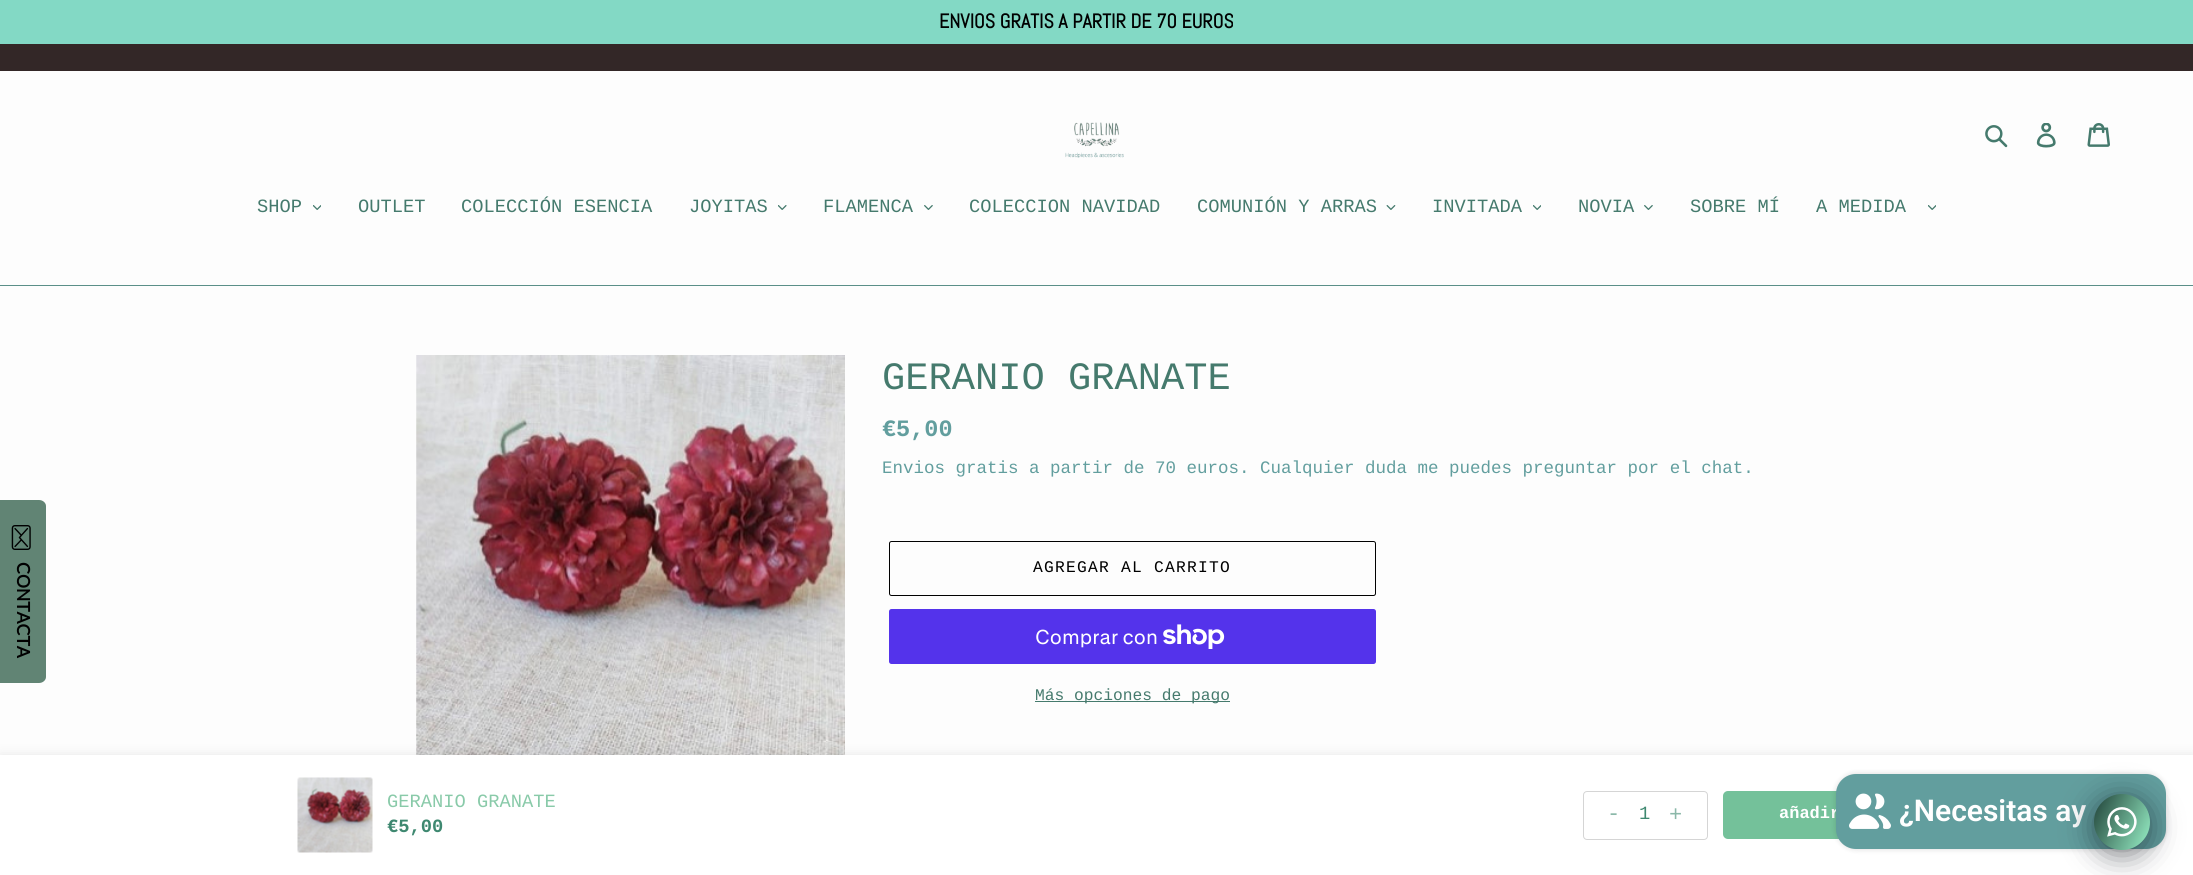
#include <cairo.h>
#include <math.h>
#include <stddef.h>

typedef struct { double x, y; const char *s; } line_t;

static void ink(cairo_t *ctx, unsigned color) {
    cairo_set_source_rgb(ctx, (color >> 16) / 255.0, (color >> 8 & 255) / 255.0, (color & 255) / 255.0);
}

static void write_spaced(cairo_t *ctx, double x, double y, const char *s, double letter, double word) {
    cairo_move_to(ctx, x, y);
    while (*s) {
        char ch[5] = {0};
        int n = 0;
        do ch[n++] = *s++; while ((*s & 0xC0) == 0x80);
        cairo_show_text(ctx, ch);
        cairo_rel_move_to(ctx, letter + word * (*ch == ' '), 0);
    }
}

static void round_path(cairo_t *ctx, double x, double y, double w, double h, double r) {
    cairo_new_sub_path(ctx);
    cairo_arc(ctx, x + w - r, y + h - r, r, 0, M_PI / 2);
    cairo_arc(ctx, x + r, y + h - r, r, M_PI / 2, M_PI);
    cairo_arc(ctx, x + r, y + r, r, M_PI, 1.5 * M_PI);
    cairo_arc(ctx, x + w - r, y + r, r, 1.5 * M_PI, 2 * M_PI);
    cairo_close_path(ctx);
}

static void blur_box(cairo_t *ctx, double x, double y, double w, double h, double r, double blur, double alpha) {
    cairo_push_group_with_content(ctx, CAIRO_CONTENT_ALPHA);
    cairo_set_operator(ctx, CAIRO_OPERATOR_SOURCE);
    for (int i = 15; i >= -15 && fmin(w, h) + blur * i / 3 > 0; i -= 2) {
        double e = blur * i / 6;
        cairo_set_source_rgba(ctx, 0, 0, 0, alpha * erfc((i - 1) / 8.5) / 2);
        round_path(ctx, x - e, y - e, w + 2 * e, h + 2 * e, fmax(0, fmin(r + e + blur * .6, fmin(w, h) / 2 + e)));
        cairo_fill(ctx);
    }
    cairo_pattern_t *soft = cairo_pop_group(ctx);
    cairo_mask(ctx, soft);
    cairo_pattern_destroy(soft);
}

static void paste(cairo_t *ctx, const char *path, double x, double y, double w, double h) {
    cairo_surface_t *image = cairo_image_surface_create_from_png(path);
    cairo_save(ctx);
    cairo_set_source_surface(ctx, image, x, y);
    cairo_rectangle(ctx, x, y, w, h);
    cairo_fill(ctx);
    cairo_restore(ctx);
    cairo_surface_destroy(image);
}

int main(void) {
    cairo_surface_t *surface = cairo_image_surface_create(CAIRO_FORMAT_RGB24, 2193, 875);
    cairo_t *ctx = cairo_create(surface);
    cairo_font_options_t *options = cairo_font_options_create();
    cairo_font_options_set_hint_metrics(options, CAIRO_HINT_METRICS_OFF);
    cairo_font_options_set_hint_style(options, CAIRO_HINT_STYLE_NONE);
    cairo_set_font_options(ctx, options);
    cairo_set_miter_limit(ctx, 4);
    cairo_pattern_t *gradient;
    ink(ctx, 0xFDFDFD);
    cairo_paint(ctx);
    ink(ctx, 0x83D9C5);
    cairo_rectangle(ctx, 0, 0, 2193, 44);
    cairo_fill(ctx);
    cairo_select_font_face(ctx, "Abel", CAIRO_FONT_SLANT_NORMAL, CAIRO_FONT_WEIGHT_BOLD);
    cairo_set_font_size(ctx, 20);
    ink(ctx, 0x000000);
    cairo_move_to(ctx, 939, 28);
    cairo_show_text(ctx, "ENVIOS GRATIS A PARTIR DE 70 EUROS");
    ink(ctx, 0x332727);
    cairo_rectangle(ctx, 0, 44, 2193, 27);
    cairo_fill(ctx);
    paste(ctx, "media/1.png", 1065, 122, 59, 36);
    paste(ctx, "media/2.png", 1985, 125, 23, 23);
    paste(ctx, "media/3.png", 2036, 123, 20, 25);
    paste(ctx, "media/4.png", 2087, 123, 23, 24);
    ink(ctx, 0x5B8F88);
    cairo_rectangle(ctx, 0, 285, 2193, 1);
    cairo_fill(ctx);
    cairo_select_font_face(ctx, "Liberation Mono", CAIRO_FONT_SLANT_NORMAL, CAIRO_FONT_WEIGHT_NORMAL);
    cairo_set_font_size(ctx, 18.75);
    ink(ctx, 0x457A6D);
    cairo_move_to(ctx, 257, 212);
    cairo_show_text(ctx, "SHOP");
    paste(ctx, "media/5.png", 313, 205, 8, 5);
    {
        static const line_t items[] = {
            {358, 212, "OUTLET"},
            {461, 212, "COLECCIÓN ESENCIA"},
            {689, 212, "JOYITAS"},
        };
        for (size_t i = 0; i < sizeof items / sizeof *items; i++) {
            cairo_move_to(ctx, items[i].x, items[i].y);
            cairo_show_text(ctx, items[i].s);
        }
    }
    paste(ctx, "media/6.png", 778, 205, 9, 5);
    cairo_move_to(ctx, 823, 212);
    cairo_show_text(ctx, "FLAMENCA");
    paste(ctx, "media/7.png", 924, 205, 9, 5);
    cairo_move_to(ctx, 969, 212);
    cairo_show_text(ctx, "COLECCION NAVIDAD");
    cairo_move_to(ctx, 1197, 212);
    cairo_show_text(ctx, "COMUNIÓN Y ARRAS");
    paste(ctx, "media/8.png", 1386, 205, 10, 5);
    cairo_move_to(ctx, 1432, 212);
    cairo_show_text(ctx, "INVITADA");
    paste(ctx, "media/5.png", 1533, 205, 8, 5);
    cairo_move_to(ctx, 1578, 212);
    cairo_show_text(ctx, "NOVIA");
    paste(ctx, "media/7.png", 1644, 205, 9, 5);
    cairo_move_to(ctx, 1690, 212);
    cairo_show_text(ctx, "SOBRE MÍ");
    cairo_move_to(ctx, 1816, 212);
    cairo_show_text(ctx, "A MEDIDA");
    paste(ctx, "media/5.png", 1928, 205, 8, 5);
    ink(ctx, 0x618474);
    cairo_new_path(ctx);
    cairo_move_to(ctx, 46, 506);
    cairo_line_to(ctx, 46, 677);
    cairo_curve_to(ctx, 46, 680, 43, 683, 39, 683);
    cairo_line_to(ctx, 0, 683);
    cairo_line_to(ctx, 0, 500);
    cairo_line_to(ctx, 39, 500);
    cairo_curve_to(ctx, 43, 500, 46, 503, 46, 506);
    cairo_close_path(ctx);
    cairo_fill(ctx);
    paste(ctx, "media/9.png", 11, 525, 20, 25);
    cairo_select_font_face(ctx, "Lato", CAIRO_FONT_SLANT_NORMAL, CAIRO_FONT_WEIGHT_BOLD);
    cairo_set_font_size(ctx, 17.5);
    ink(ctx, 0x000000);
    cairo_save(ctx);
    cairo_translate(ctx, 17, 562);
    cairo_rotate(ctx, 90 * M_PI / 180);
    cairo_move_to(ctx, 0, 0);
    cairo_show_text(ctx, "CONTACTA");
    cairo_restore(ctx);
    paste(ctx, "media/10.png", 416, 355, 429, 400);
    cairo_select_font_face(ctx, "Liberation Mono", CAIRO_FONT_SLANT_NORMAL, CAIRO_FONT_WEIGHT_NORMAL);
    cairo_set_font_size(ctx, 38.75);
    ink(ctx, 0x457A6D);
    cairo_move_to(ctx, 882, 389);
    cairo_show_text(ctx, "GERANIO GRANATE");
    cairo_select_font_face(ctx, "Liberation Mono", CAIRO_FONT_SLANT_NORMAL, CAIRO_FONT_WEIGHT_BOLD);
    cairo_set_font_size(ctx, 23.5);
    ink(ctx, 0x629E9E);
    cairo_move_to(ctx, 882, 436);
    cairo_show_text(ctx, "€5,00");
    cairo_select_font_face(ctx, "Liberation Mono", CAIRO_FONT_SLANT_NORMAL, CAIRO_FONT_WEIGHT_NORMAL);
    cairo_set_font_size(ctx, 17.5);
    cairo_move_to(ctx, 882, 473);
    cairo_show_text(ctx, "Envios gratis a partir de 70 euros. Cualquier duda me puedes preguntar por el chat.");
    round_path(ctx, 889.5, 541.5, 486, 54, 2);
    ink(ctx, 0x000000);
    cairo_set_line_width(ctx, 1);
    cairo_stroke(ctx);
    cairo_set_font_size(ctx, 16.25);
    write_spaced(ctx, 1033, 572, "AGREGAR AL CARRITO", 1.25, 0);
    ink(ctx, 0x5433EB);
    round_path(ctx, 889, 609, 487, 55, 2.5);
    cairo_fill(ctx);
    cairo_select_font_face(ctx, "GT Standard", CAIRO_FONT_SLANT_NORMAL, CAIRO_FONT_WEIGHT_NORMAL);
    cairo_set_font_size(ctx, 20);
    ink(ctx, 0xFFFFFF);
    cairo_move_to(ctx, 1035, 644);
    cairo_show_text(ctx, "Comprar con");
    paste(ctx, "media/11.png", 1163, 624, 62, 25);
    ink(ctx, 0x457A6D);
    cairo_rectangle(ctx, 1035, 701, 195, 1);
    cairo_fill(ctx);
    cairo_select_font_face(ctx, "Liberation Mono", CAIRO_FONT_SLANT_NORMAL, CAIRO_FONT_WEIGHT_NORMAL);
    cairo_set_font_size(ctx, 16.25);
    cairo_move_to(ctx, 1035, 700);
    cairo_show_text(ctx, "Más opciones de pago");
    ink(ctx, 0x000000);
    blur_box(ctx, 0, 755, 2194, 120, 0, 6, 0.09);
    ink(ctx, 0xFFFFFF);
    cairo_rectangle(ctx, 0, 755, 2193, 120);
    cairo_fill(ctx);
    paste(ctx, "media/12.png", 297, 777, 76, 76);
    cairo_set_font_size(ctx, 18.75);
    ink(ctx, 0x89CAA9);
    cairo_move_to(ctx, 387, 807);
    cairo_show_text(ctx, "GERANIO GRANATE");
    cairo_select_font_face(ctx, "Liberation Mono", CAIRO_FONT_SLANT_NORMAL, CAIRO_FONT_WEIGHT_BOLD);
    ink(ctx, 0x3E8870);
    cairo_move_to(ctx, 387, 832);
    cairo_show_text(ctx, "€5,00");
    round_path(ctx, 1583.5, 791.5, 124, 48, 3.5);
    ink(ctx, 0xD5D5D5);
    cairo_stroke(ctx);
    cairo_select_font_face(ctx, "Liberation Mono", CAIRO_FONT_SLANT_NORMAL, CAIRO_FONT_WEIGHT_NORMAL);
    cairo_set_font_size(ctx, 22);
    ink(ctx, 0x8BB8A9);
    cairo_move_to(ctx, 1607, 820);
    cairo_show_text(ctx, "-");
    cairo_set_font_size(ctx, 18.75);
    ink(ctx, 0x3E8870);
    cairo_move_to(ctx, 1639, 819);
    cairo_show_text(ctx, "1");
    cairo_set_font_size(ctx, 22);
    ink(ctx, 0x8BB8A9);
    cairo_move_to(ctx, 1669, 821);
    cairo_show_text(ctx, "+");
    ink(ctx, 0x74C19A);
    round_path(ctx, 1723, 791, 175, 48, 5);
    cairo_fill(ctx);
    cairo_select_font_face(ctx, "Liberation Mono", CAIRO_FONT_SLANT_NORMAL, CAIRO_FONT_WEIGHT_BOLD);
    cairo_set_font_size(ctx, 17);
    ink(ctx, 0xFFFFFF);
    cairo_move_to(ctx, 1779, 818);
    cairo_show_text(ctx, "añadir");
    ink(ctx, 0x000000);
    blur_box(ctx, 1836, 774, 330, 75, 20, 3, 0.15);
    ink(ctx, 0x629E9E);
    round_path(ctx, 1836, 774, 330, 75, 20);
    cairo_fill(ctx);
    paste(ctx, "media/13.png", 1849, 793, 42, 36);
    cairo_select_font_face(ctx, "Roboto SemiBold", CAIRO_FONT_SLANT_NORMAL, CAIRO_FONT_WEIGHT_NORMAL);
    cairo_set_font_size(ctx, 30);
    ink(ctx, 0xFFFFFF);
    cairo_move_to(ctx, 1899, 821);
    cairo_show_text(ctx, "¿Necesitas ay");
    ink(ctx, 0x020610);
    blur_box(ctx, 2094, 799, 56, 56, 28, 15, 0.5);
    gradient = cairo_pattern_create_linear(2088, 806, 2156, 838);
    cairo_pattern_add_color_stop_rgba(gradient, 0, 0.122, 0.251, 0.216, 1);
    cairo_pattern_add_color_stop_rgba(gradient, 1, 0.6, 0.949, 0.784, 1);
    cairo_set_source(ctx, gradient);
    cairo_pattern_destroy(gradient);
    cairo_arc(ctx, 2122, 822, 28, 0, 2 * M_PI);
    cairo_fill(ctx);
    paste(ctx, "media/14.png", 2107, 807, 30, 30);
    cairo_surface_write_to_png(surface, "image.png");
    cairo_font_options_destroy(options);
    cairo_destroy(ctx);
    cairo_surface_destroy(surface);
    return 0;
}
